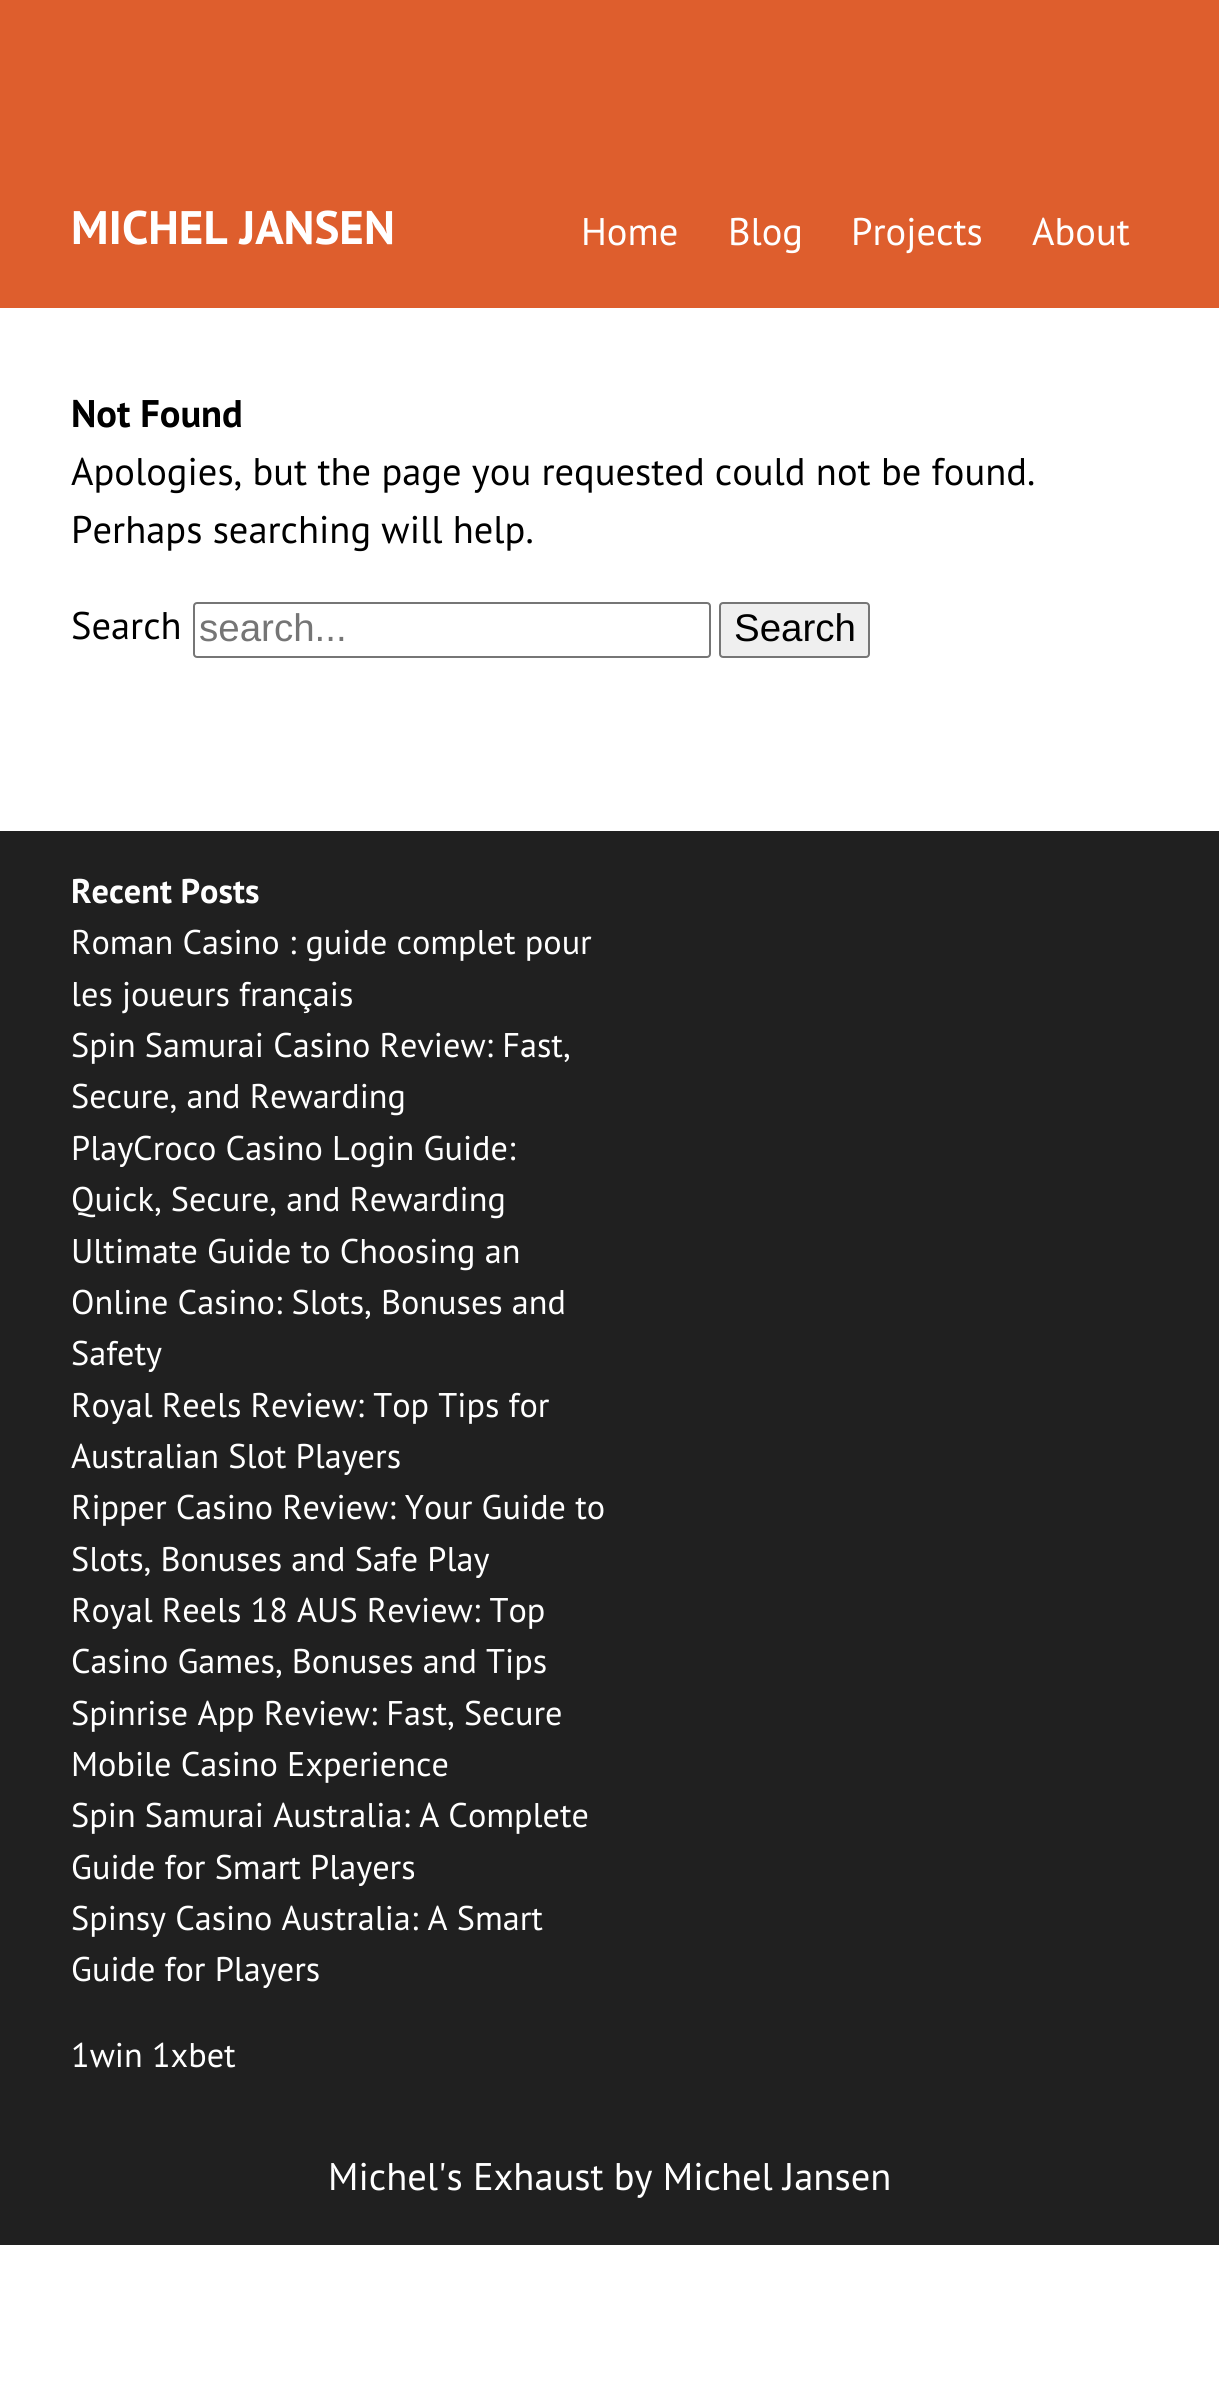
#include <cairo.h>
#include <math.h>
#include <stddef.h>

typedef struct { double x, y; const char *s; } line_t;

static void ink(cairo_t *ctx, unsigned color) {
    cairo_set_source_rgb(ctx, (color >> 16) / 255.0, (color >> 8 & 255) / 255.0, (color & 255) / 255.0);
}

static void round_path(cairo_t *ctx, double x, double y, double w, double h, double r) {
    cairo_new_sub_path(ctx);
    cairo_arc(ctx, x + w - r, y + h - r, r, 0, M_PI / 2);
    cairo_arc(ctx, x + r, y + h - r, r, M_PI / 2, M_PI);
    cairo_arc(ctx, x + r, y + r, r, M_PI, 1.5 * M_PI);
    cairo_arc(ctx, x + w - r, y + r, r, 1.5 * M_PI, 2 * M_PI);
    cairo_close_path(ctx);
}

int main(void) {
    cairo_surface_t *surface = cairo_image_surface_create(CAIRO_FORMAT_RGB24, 1219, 2400);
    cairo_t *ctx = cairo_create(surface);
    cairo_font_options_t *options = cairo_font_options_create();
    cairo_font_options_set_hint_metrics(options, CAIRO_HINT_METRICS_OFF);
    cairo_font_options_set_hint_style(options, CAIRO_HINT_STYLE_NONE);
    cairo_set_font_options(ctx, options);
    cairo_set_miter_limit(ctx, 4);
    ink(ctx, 0xFFFFFF);
    cairo_paint(ctx);
    ink(ctx, 0xDE5E2D);
    cairo_rectangle(ctx, 0, 0, 1219, 308);
    cairo_fill(ctx);
    cairo_select_font_face(ctx, "PT Sans", CAIRO_FONT_SLANT_NORMAL, CAIRO_FONT_WEIGHT_BOLD);
    cairo_set_font_size(ctx, 47);
    ink(ctx, 0xFFFFFF);
    cairo_move_to(ctx, 71, 244);
    cairo_show_text(ctx, "MICHEL JANSEN");
    cairo_select_font_face(ctx, "PT Sans", CAIRO_FONT_SLANT_NORMAL, CAIRO_FONT_WEIGHT_NORMAL);
    cairo_set_font_size(ctx, 38.5);
    {
        static const line_t items[] = {
            {581, 245, "Home"},
            {728, 245, "Blog"},
            {851, 245, "Projects"},
            {1032, 245, "About"},
        };
        for (size_t i = 0; i < sizeof items / sizeof *items; i++) {
            cairo_move_to(ctx, items[i].x, items[i].y);
            cairo_show_text(ctx, items[i].s);
        }
    }
    cairo_select_font_face(ctx, "PT Sans", CAIRO_FONT_SLANT_NORMAL, CAIRO_FONT_WEIGHT_BOLD);
    ink(ctx, 0x000000);
    cairo_move_to(ctx, 71, 427);
    cairo_show_text(ctx, "Not Found");
    cairo_select_font_face(ctx, "PT Sans", CAIRO_FONT_SLANT_NORMAL, CAIRO_FONT_WEIGHT_NORMAL);
    {
        static const line_t items[] = {
            {71, 485, "Apologies, but the page you requested could not be found."},
            {71, 543, "Perhaps searching will help."},
            {71, 639, "Search"},
        };
        for (size_t i = 0; i < sizeof items / sizeof *items; i++) {
            cairo_move_to(ctx, items[i].x, items[i].y);
            cairo_show_text(ctx, items[i].s);
        }
    }
    round_path(ctx, 194, 603, 516, 54, 3);
    ink(ctx, 0x767676);
    cairo_stroke(ctx);
    cairo_select_font_face(ctx, "Liberation Sans", CAIRO_FONT_SLANT_NORMAL, CAIRO_FONT_WEIGHT_NORMAL);
    ink(ctx, 0x757575);
    cairo_move_to(ctx, 199, 641);
    cairo_show_text(ctx, "search...");
    ink(ctx, 0xEFEFEF);
    round_path(ctx, 720, 603, 149, 54, 3);
    cairo_fill_preserve(ctx);
    ink(ctx, 0x767676);
    cairo_stroke(ctx);
    ink(ctx, 0x000000);
    cairo_move_to(ctx, 734, 641);
    cairo_show_text(ctx, "Search");
    ink(ctx, 0x202020);
    cairo_rectangle(ctx, 0, 831, 1219, 1414);
    cairo_fill(ctx);
    cairo_select_font_face(ctx, "PT Sans", CAIRO_FONT_SLANT_NORMAL, CAIRO_FONT_WEIGHT_BOLD);
    cairo_set_font_size(ctx, 34.25);
    ink(ctx, 0xFFFFFF);
    cairo_move_to(ctx, 71, 903);
    cairo_show_text(ctx, "Recent Posts");
    cairo_select_font_face(ctx, "PT Sans", CAIRO_FONT_SLANT_NORMAL, CAIRO_FONT_WEIGHT_NORMAL);
    {
        static const line_t items[] = {
            {71, 954, "Roman Casino : guide complet pour"},
            {71, 1006, "les joueurs français"},
            {71, 1057, "Spin Samurai Casino Review: Fast,"},
            {71, 1108, "Secure, and Rewarding"},
            {71, 1160, "PlayCroco Casino Login Guide:"},
            {71, 1211, "Quick, Secure, and Rewarding"},
            {71, 1263, "Ultimate Guide to Choosing an"},
            {71, 1314, "Online Casino: Slots, Bonuses and"},
            {71, 1365, "Safety"},
            {71, 1417, "Royal Reels Review: Top Tips for"},
            {71, 1468, "Australian Slot Players"},
            {71, 1519, "Ripper Casino Review: Your Guide to"},
            {71, 1571, "Slots, Bonuses and Safe Play"},
            {71, 1622, "Royal Reels 18 AUS Review: Top"},
            {71, 1673, "Casino Games, Bonuses and Tips"},
            {71, 1725, "Spinrise App Review: Fast, Secure"},
            {71, 1776, "Mobile Casino Experience"},
            {71, 1827, "Spin Samurai Australia: A Complete"},
            {71, 1879, "Guide for Smart Players"},
            {71, 1930, "Spinsy Casino Australia: A Smart"},
            {71, 1981, "Guide for Players"},
            {71, 2067, "1win 1xbet"},
        };
        for (size_t i = 0; i < sizeof items / sizeof *items; i++) {
            cairo_move_to(ctx, items[i].x, items[i].y);
            cairo_show_text(ctx, items[i].s);
        }
    }
    cairo_set_font_size(ctx, 38.5);
    cairo_move_to(ctx, 328, 2190);
    cairo_show_text(ctx, "Michel's Exhaust by Michel Jansen");
    cairo_surface_write_to_png(surface, "image.png");
    cairo_font_options_destroy(options);
    cairo_destroy(ctx);
    cairo_surface_destroy(surface);
    return 0;
}
